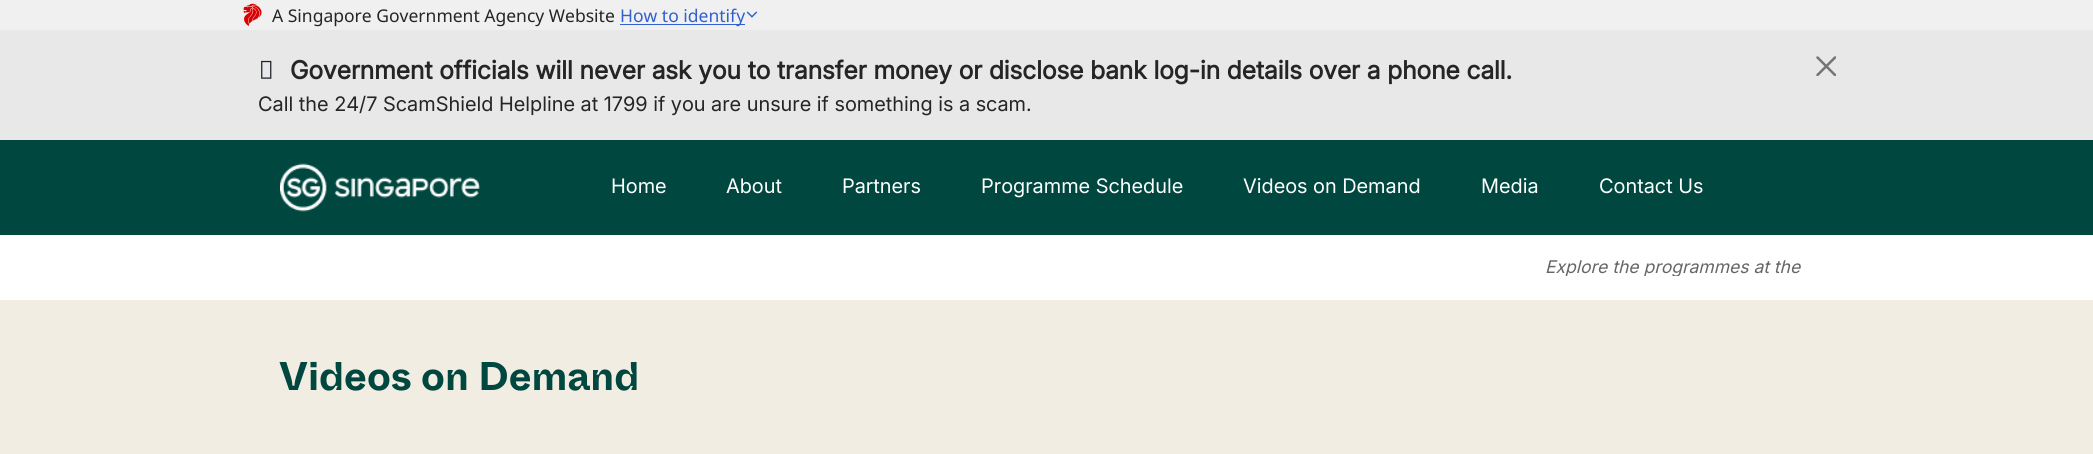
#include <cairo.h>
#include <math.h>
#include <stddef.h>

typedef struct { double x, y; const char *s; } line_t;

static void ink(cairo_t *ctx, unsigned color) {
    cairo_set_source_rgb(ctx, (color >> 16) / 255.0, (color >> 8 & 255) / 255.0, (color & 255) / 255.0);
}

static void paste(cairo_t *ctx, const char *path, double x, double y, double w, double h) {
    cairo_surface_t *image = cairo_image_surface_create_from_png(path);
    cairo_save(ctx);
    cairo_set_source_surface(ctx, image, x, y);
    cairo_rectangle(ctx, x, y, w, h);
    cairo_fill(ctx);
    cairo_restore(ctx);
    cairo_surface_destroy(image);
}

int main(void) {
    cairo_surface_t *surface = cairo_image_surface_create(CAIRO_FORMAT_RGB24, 2093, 454);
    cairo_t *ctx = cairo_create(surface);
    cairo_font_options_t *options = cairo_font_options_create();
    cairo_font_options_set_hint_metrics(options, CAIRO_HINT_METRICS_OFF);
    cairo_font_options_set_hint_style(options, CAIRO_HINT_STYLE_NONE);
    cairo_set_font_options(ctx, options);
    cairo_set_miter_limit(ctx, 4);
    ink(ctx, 0xF2EDE3);
    cairo_paint(ctx);
    ink(ctx, 0xF0F0F0);
    cairo_rectangle(ctx, 0, 0, 2093, 30);
    cairo_fill(ctx);
    paste(ctx, "media/1.png", 243, 3, 19, 24);
    cairo_select_font_face(ctx, "Noto Sans", CAIRO_FONT_SLANT_NORMAL, CAIRO_FONT_WEIGHT_NORMAL);
    cairo_set_font_size(ctx, 17.5);
    ink(ctx, 0x252525);
    cairo_move_to(ctx, 272, 22);
    cairo_show_text(ctx, "A Singapore Government Agency Website");
    ink(ctx, 0x2F5FD0);
    cairo_rectangle(ctx, 620, 24, 125, 1);
    cairo_fill(ctx);
    cairo_move_to(ctx, 620, 22);
    cairo_show_text(ctx, "How to identify");
    paste(ctx, "media/2.png", 746, 11, 12, 7);
    ink(ctx, 0xE8E8E8);
    cairo_rectangle(ctx, 0, 30, 2093, 110);
    cairo_fill(ctx);
    paste(ctx, "media/3.png", 261, 60, 11, 19);
    cairo_select_font_face(ctx, "Inter", CAIRO_FONT_SLANT_NORMAL, CAIRO_FONT_WEIGHT_BOLD);
    cairo_set_font_size(ctx, 25);
    ink(ctx, 0x252525);
    cairo_move_to(ctx, 290, 79);
    cairo_show_text(ctx, "Government officials will never ask you to transfer money or disclose bank log-in details over a phone call.");
    paste(ctx, "media/4.png", 1816, 56, 20, 20);
    cairo_select_font_face(ctx, "Inter", CAIRO_FONT_SLANT_NORMAL, CAIRO_FONT_WEIGHT_NORMAL);
    cairo_set_font_size(ctx, 20);
    cairo_move_to(ctx, 258, 111);
    cairo_show_text(ctx, "Call the 24/7 ScamShield Helpline at 1799 if you are unsure if something is a scam.");
    ink(ctx, 0x00473F);
    cairo_rectangle(ctx, 0, 140, 2093, 95);
    cairo_fill(ctx);
    paste(ctx, "media/5.png", 280, 163, 200, 49);
    ink(ctx, 0xFFFFFF);
    {
        static const line_t items[] = {
            {611, 193, "Home"},
            {726, 193, "About"},
            {842, 193, "Partners"},
            {981, 193, "Programme Schedule"},
            {1243, 193, "Videos on Demand"},
            {1481, 193, "Media"},
            {1599, 193, "Contact Us"},
        };
        for (size_t i = 0; i < sizeof items / sizeof *items; i++) {
            cairo_move_to(ctx, items[i].x, items[i].y);
            cairo_show_text(ctx, items[i].s);
        }
    }
    cairo_rectangle(ctx, 0, 235, 2093, 65);
    cairo_fill(ctx);
    cairo_save(ctx);
    cairo_rectangle(ctx, 285, 255, 1525, 21);
    cairo_clip(ctx);
    cairo_select_font_face(ctx, "Inter", CAIRO_FONT_SLANT_ITALIC, CAIRO_FONT_WEIGHT_NORMAL);
    cairo_set_font_size(ctx, 17.5);
    ink(ctx, 0x666666);
    cairo_move_to(ctx, 1545, 273);
    cairo_show_text(ctx, "Explore the programmes at the");
    cairo_restore(ctx);
    cairo_select_font_face(ctx, "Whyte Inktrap", CAIRO_FONT_SLANT_NORMAL, CAIRO_FONT_WEIGHT_BOLD);
    cairo_set_font_size(ctx, 40);
    ink(ctx, 0x00473F);
    cairo_move_to(ctx, 279, 390);
    cairo_show_text(ctx, "Videos on Demand");
    cairo_surface_write_to_png(surface, "image.png");
    cairo_font_options_destroy(options);
    cairo_destroy(ctx);
    cairo_surface_destroy(surface);
    return 0;
}
